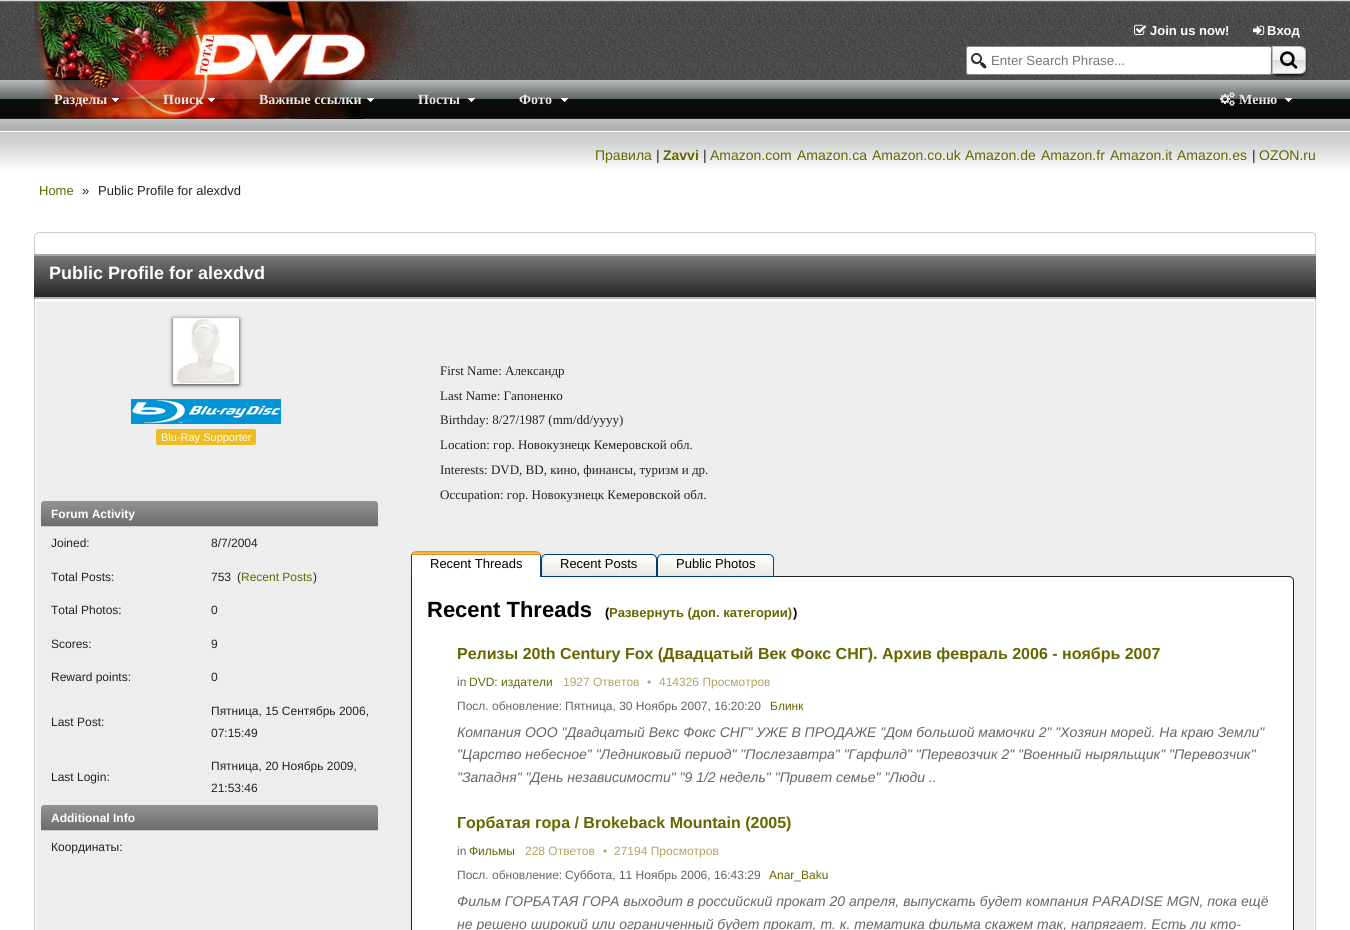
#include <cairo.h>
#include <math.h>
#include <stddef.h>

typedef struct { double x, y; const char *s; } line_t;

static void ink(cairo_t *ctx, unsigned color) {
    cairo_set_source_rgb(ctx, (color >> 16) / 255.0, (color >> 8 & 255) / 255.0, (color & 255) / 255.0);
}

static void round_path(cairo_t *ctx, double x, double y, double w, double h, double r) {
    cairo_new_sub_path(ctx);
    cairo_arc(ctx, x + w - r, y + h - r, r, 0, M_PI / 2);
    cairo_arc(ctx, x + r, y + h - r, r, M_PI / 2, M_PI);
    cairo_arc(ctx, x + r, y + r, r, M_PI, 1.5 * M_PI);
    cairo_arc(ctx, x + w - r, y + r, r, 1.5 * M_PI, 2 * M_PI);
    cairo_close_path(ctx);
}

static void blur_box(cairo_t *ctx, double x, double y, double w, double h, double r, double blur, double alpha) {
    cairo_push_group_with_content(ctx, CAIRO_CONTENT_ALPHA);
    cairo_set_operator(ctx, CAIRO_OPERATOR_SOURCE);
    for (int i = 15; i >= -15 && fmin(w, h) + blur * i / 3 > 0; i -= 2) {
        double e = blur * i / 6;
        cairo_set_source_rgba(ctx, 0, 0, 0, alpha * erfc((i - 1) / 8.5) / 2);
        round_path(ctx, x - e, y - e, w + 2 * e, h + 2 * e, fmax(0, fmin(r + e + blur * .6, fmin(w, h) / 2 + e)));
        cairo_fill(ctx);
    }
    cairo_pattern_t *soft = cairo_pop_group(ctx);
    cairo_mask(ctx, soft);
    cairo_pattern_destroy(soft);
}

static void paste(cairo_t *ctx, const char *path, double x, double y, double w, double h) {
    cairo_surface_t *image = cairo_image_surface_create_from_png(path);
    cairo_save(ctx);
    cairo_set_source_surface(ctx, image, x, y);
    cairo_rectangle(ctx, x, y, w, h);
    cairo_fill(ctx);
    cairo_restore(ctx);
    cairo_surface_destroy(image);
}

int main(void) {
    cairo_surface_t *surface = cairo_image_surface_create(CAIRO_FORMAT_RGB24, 1350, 930);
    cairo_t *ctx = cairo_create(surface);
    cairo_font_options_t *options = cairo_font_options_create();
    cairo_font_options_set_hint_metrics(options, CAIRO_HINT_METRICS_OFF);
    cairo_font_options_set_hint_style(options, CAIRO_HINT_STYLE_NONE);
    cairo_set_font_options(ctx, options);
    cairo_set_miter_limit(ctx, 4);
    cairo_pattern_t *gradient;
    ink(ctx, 0xFFFFFF);
    cairo_paint(ctx);
    paste(ctx, "media/1.png", 0, 0, 1350, 171);
    paste(ctx, "media/2.png", 1134, 24, 12, 11);
    cairo_select_font_face(ctx, "Liberation Sans", CAIRO_FONT_SLANT_NORMAL, CAIRO_FONT_WEIGHT_BOLD);
    cairo_set_font_size(ctx, 13);
    ink(ctx, 0xFFFFFF);
    cairo_move_to(ctx, 1150, 35);
    cairo_show_text(ctx, "Join us now!");
    paste(ctx, "media/3.png", 1253, 25, 12, 10);
    cairo_move_to(ctx, 1267, 35);
    cairo_show_text(ctx, "Вход");
    paste(ctx, "media/4.png", 34, 0, 450, 120);
    round_path(ctx, 966, 46, 306, 29, 3);
    cairo_fill(ctx);
    paste(ctx, "media/5.png", 971, 53, 16, 16);
    round_path(ctx, 966.5, 46.5, 305, 28, 2.5);
    ink(ctx, 0x888888);
    cairo_set_line_width(ctx, 1);
    cairo_stroke(ctx);
    cairo_select_font_face(ctx, "Liberation Sans", CAIRO_FONT_SLANT_NORMAL, CAIRO_FONT_WEIGHT_NORMAL);
    cairo_set_font_size(ctx, 13.25);
    ink(ctx, 0x757575);
    cairo_move_to(ctx, 991, 65);
    cairo_show_text(ctx, "Enter Search Phrase...");
    ink(ctx, 0x000000);
    blur_box(ctx, 1272, 48, 34, 28, 6, 1, 0.6);
    cairo_save(ctx);
    cairo_new_path(ctx);
    cairo_move_to(ctx, 1272, 46);
    cairo_line_to(ctx, 1300, 46);
    cairo_curve_to(ctx, 1303.5, 46, 1306, 48.5, 1306, 52);
    cairo_line_to(ctx, 1306, 68);
    cairo_curve_to(ctx, 1306, 71.5, 1303.5, 74, 1300, 74);
    cairo_line_to(ctx, 1272, 74);
    cairo_close_path(ctx);
    cairo_clip(ctx);
    gradient = cairo_pattern_create_linear(1289, 47, 1289, 73);
    cairo_pattern_add_color_stop_rgba(gradient, 0, 0.996, 0.996, 0.996, 1);
    cairo_pattern_add_color_stop_rgba(gradient, 0.5, 0.937, 0.937, 0.937, 1);
    cairo_pattern_add_color_stop_rgba(gradient, 0.51, 0.855, 0.855, 0.855, 1);
    cairo_pattern_add_color_stop_rgba(gradient, 1, 0.98, 0.98, 0.98, 1);
    cairo_set_source(ctx, gradient);
    cairo_pattern_destroy(gradient);
    cairo_rectangle(ctx, 1273, 47, 33, 26);
    cairo_fill(ctx);
    cairo_restore(ctx);
    cairo_new_path(ctx);
    cairo_move_to(ctx, 1272.5, 46.5);
    cairo_line_to(ctx, 1300, 46.5);
    cairo_curve_to(ctx, 1303, 46.5, 1305.5, 49, 1305.5, 52);
    cairo_line_to(ctx, 1305.5, 68);
    cairo_curve_to(ctx, 1305.5, 71, 1303, 73.5, 1300, 73.5);
    cairo_line_to(ctx, 1272.5, 73.5);
    cairo_close_path(ctx);
    ink(ctx, 0xBBBBBB);
    cairo_stroke(ctx);
    paste(ctx, "media/6.png", 1280, 51, 18, 18);
    cairo_select_font_face(ctx, "Liberation Serif", CAIRO_FONT_SLANT_NORMAL, CAIRO_FONT_WEIGHT_BOLD);
    cairo_set_font_size(ctx, 14);
    ink(ctx, 0xE9E9E9);
    cairo_move_to(ctx, 54, 104);
    cairo_show_text(ctx, "Разделы");
    paste(ctx, "media/7.png", 112, 98, 7, 4);
    cairo_move_to(ctx, 163, 104);
    cairo_show_text(ctx, "Поиск");
    paste(ctx, "media/8.png", 208, 98, 7, 4);
    cairo_move_to(ctx, 259, 104);
    cairo_show_text(ctx, "Важные ссылки");
    paste(ctx, "media/9.png", 367, 98, 7, 4);
    cairo_move_to(ctx, 418, 104);
    cairo_show_text(ctx, "Посты");
    paste(ctx, "media/10.png", 468, 98, 7, 4);
    cairo_move_to(ctx, 519, 104);
    cairo_show_text(ctx, "Фото");
    paste(ctx, "media/11.png", 561, 98, 7, 4);
    paste(ctx, "media/12.png", 1220, 92, 15, 14);
    cairo_move_to(ctx, 1239, 104);
    cairo_show_text(ctx, "Меню");
    paste(ctx, "media/11.png", 1285, 98, 7, 4);
    cairo_select_font_face(ctx, "Liberation Sans", CAIRO_FONT_SLANT_NORMAL, CAIRO_FONT_WEIGHT_NORMAL);
    ink(ctx, 0x666600);
    cairo_move_to(ctx, 595, 160);
    cairo_show_text(ctx, "Правила");
    ink(ctx, 0x222222);
    cairo_move_to(ctx, 656, 160);
    cairo_show_text(ctx, "|");
    cairo_select_font_face(ctx, "Liberation Sans", CAIRO_FONT_SLANT_NORMAL, CAIRO_FONT_WEIGHT_BOLD);
    ink(ctx, 0x666600);
    cairo_move_to(ctx, 663, 160);
    cairo_show_text(ctx, "Zavvi");
    cairo_select_font_face(ctx, "Liberation Sans", CAIRO_FONT_SLANT_NORMAL, CAIRO_FONT_WEIGHT_NORMAL);
    ink(ctx, 0x222222);
    cairo_move_to(ctx, 703, 160);
    cairo_show_text(ctx, "|");
    ink(ctx, 0x666600);
    {
        static const line_t items[] = {
            {710, 160, "Amazon.com"},
            {797, 160, "Amazon.ca"},
            {872, 160, "Amazon.co.uk"},
            {965, 160, "Amazon.de"},
            {1041, 160, "Amazon.fr"},
            {1110, 160, "Amazon.it"},
            {1177, 160, "Amazon.es"},
        };
        for (size_t i = 0; i < sizeof items / sizeof *items; i++) {
            cairo_move_to(ctx, items[i].x, items[i].y);
            cairo_show_text(ctx, items[i].s);
        }
    }
    ink(ctx, 0x222222);
    cairo_move_to(ctx, 1252, 160);
    cairo_show_text(ctx, "|");
    ink(ctx, 0x666600);
    cairo_move_to(ctx, 1259, 160);
    cairo_show_text(ctx, "OZON.ru");
    cairo_set_font_size(ctx, 13);
    cairo_move_to(ctx, 39, 195);
    cairo_show_text(ctx, "Home");
    ink(ctx, 0x222222);
    cairo_move_to(ctx, 82, 195);
    cairo_show_text(ctx, "»");
    cairo_move_to(ctx, 98, 195);
    cairo_show_text(ctx, "Public Profile for alexdvd");
    cairo_save(ctx);
    cairo_rectangle(ctx, 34, 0, 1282, 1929);
    cairo_clip(ctx);
    ink(ctx, 0xBBBBBB);
    blur_box(ctx, 36, 234, 1282, 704, 5, 1, 1);
    cairo_restore(ctx);
    ink(ctx, 0xFFFFFF);
    round_path(ctx, 34.5, 232.5, 1281, 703, 4.5);
    cairo_fill_preserve(ctx);
    ink(ctx, 0xCCCCCC);
    cairo_stroke(ctx);
    cairo_save(ctx);
    cairo_rectangle(ctx, 34, 0, 1282, 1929);
    cairo_clip(ctx);
    cairo_set_source_rgba(ctx, 0, 0, 0, 0.3);
    cairo_new_path(ctx);
    cairo_move_to(ctx, 24, 296);
    cairo_curve_to(ctx, 24, 297, 24, 299, 25, 299);
    cairo_line_to(ctx, 1325, 299);
    cairo_line_to(ctx, 1326, 298);
    cairo_line_to(ctx, 1326, 296);
    cairo_line_to(ctx, 1325, 297);
    cairo_line_to(ctx, 25, 297);
    cairo_close_path(ctx);
    cairo_fill(ctx);
    cairo_restore(ctx);
    gradient = cairo_pattern_create_linear(675, 254, 675, 297);
    cairo_pattern_add_color_stop_rgba(gradient, 0, 0.482, 0.482, 0.482, 1);
    cairo_pattern_add_color_stop_rgba(gradient, 1, 0.149, 0.149, 0.149, 1);
    cairo_set_source(ctx, gradient);
    cairo_pattern_destroy(gradient);
    cairo_rectangle(ctx, 34, 256, 1282, 41);
    cairo_fill(ctx);
    cairo_save(ctx);
    cairo_rectangle(ctx, 34, 0, 1282, 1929);
    cairo_clip(ctx);
    ink(ctx, 0xA8A8A8);
    cairo_new_path(ctx);
    cairo_move_to(ctx, 31, 256);
    cairo_line_to(ctx, 1323, 256);
    cairo_line_to(ctx, 1325, 256);
    cairo_curve_to(ctx, 1324, 255, 1323, 254, 1321, 254);
    cairo_line_to(ctx, 29, 254);
    cairo_curve_to(ctx, 26, 254, 24, 256, 24, 259);
    cairo_line_to(ctx, 24, 296);
    cairo_curve_to(ctx, 24, 297, 24, 297, 25, 297);
    cairo_line_to(ctx, 26, 297);
    cairo_line_to(ctx, 26, 261);
    cairo_curve_to(ctx, 26, 258, 28, 256, 31, 256);
    cairo_close_path(ctx);
    cairo_fill(ctx);
    cairo_restore(ctx);
    cairo_select_font_face(ctx, "Liberation Sans", CAIRO_FONT_SLANT_NORMAL, CAIRO_FONT_WEIGHT_BOLD);
    cairo_set_font_size(ctx, 18);
    ink(ctx, 0xFFFFFF);
    cairo_move_to(ctx, 49, 279);
    cairo_show_text(ctx, "Public Profile for alexdvd");
    ink(ctx, 0xEDEDED);
    cairo_rectangle(ctx, 36, 302, 1278, 628);
    cairo_fill(ctx);
    ink(ctx, 0x232323);
    blur_box(ctx, 173, 319, 66, 66, 0, 2, 1);
    paste(ctx, "media/13.png", 173, 318, 66, 66);
    paste(ctx, "media/14.png", 131, 399, 150, 25);
    ink(ctx, 0xECBC22);
    round_path(ctx, 156, 429, 100, 16, 2);
    cairo_fill(ctx);
    cairo_select_font_face(ctx, "Liberation Sans", CAIRO_FONT_SLANT_NORMAL, CAIRO_FONT_WEIGHT_NORMAL);
    cairo_set_font_size(ctx, 11);
    ink(ctx, 0xFFFFFF);
    cairo_move_to(ctx, 161, 441);
    cairo_show_text(ctx, "Blu-Ray Supporter");
    gradient = cairo_pattern_create_linear(210, 501, 210, 526);
    cairo_pattern_add_color_stop_rgba(gradient, 0, 0.576, 0.576, 0.576, 1);
    cairo_pattern_add_color_stop_rgba(gradient, 1, 0.424, 0.424, 0.424, 1);
    cairo_set_source(ctx, gradient);
    cairo_pattern_destroy(gradient);
    cairo_new_path(ctx);
    cairo_move_to(ctx, 44, 501);
    cairo_line_to(ctx, 375, 501);
    cairo_curve_to(ctx, 376.5, 501, 378, 502.5, 378, 504);
    cairo_line_to(ctx, 378, 526);
    cairo_line_to(ctx, 41, 526);
    cairo_line_to(ctx, 41, 504);
    cairo_curve_to(ctx, 41, 502.5, 42.5, 501, 44, 501);
    cairo_close_path(ctx);
    cairo_fill(ctx);
    ink(ctx, 0xCCCCCC);
    cairo_rectangle(ctx, 41, 526, 337, 1);
    cairo_fill(ctx);
    cairo_select_font_face(ctx, "Liberation Sans", CAIRO_FONT_SLANT_NORMAL, CAIRO_FONT_WEIGHT_BOLD);
    cairo_set_font_size(ctx, 12);
    ink(ctx, 0xFFFFFF);
    cairo_move_to(ctx, 51, 518);
    cairo_show_text(ctx, "Forum Activity");
    cairo_select_font_face(ctx, "Liberation Sans", CAIRO_FONT_SLANT_NORMAL, CAIRO_FONT_WEIGHT_NORMAL);
    ink(ctx, 0x222222);
    {
        static const line_t items[] = {
            {51, 547, "Joined:"},
            {211, 547, "8/7/2004"},
            {51, 581, "Total Posts:"},
            {211, 581, "753"},
            {237, 581, "("},
        };
        for (size_t i = 0; i < sizeof items / sizeof *items; i++) {
            cairo_move_to(ctx, items[i].x, items[i].y);
            cairo_show_text(ctx, items[i].s);
        }
    }
    ink(ctx, 0x666600);
    cairo_move_to(ctx, 241, 581);
    cairo_show_text(ctx, "Recent Posts");
    ink(ctx, 0x222222);
    {
        static const line_t items[] = {
            {313, 581, ")"},
            {51, 614, "Total Photos:"},
            {211, 614, "0"},
            {51, 648, "Scores:"},
            {211, 648, "9"},
            {51, 681, "Reward points:"},
            {211, 681, "0"},
            {51, 726, "Last Post:"},
            {211, 715, "Пятница, 15 Сентябрь 2006,"},
            {211, 737, "07:15:49"},
            {51, 781, "Last Login:"},
            {211, 770, "Пятница, 20 Ноябрь 2009,"},
            {211, 792, "21:53:46"},
        };
        for (size_t i = 0; i < sizeof items / sizeof *items; i++) {
            cairo_move_to(ctx, items[i].x, items[i].y);
            cairo_show_text(ctx, items[i].s);
        }
    }
    gradient = cairo_pattern_create_linear(210, 805, 210, 830);
    cairo_pattern_add_color_stop_rgba(gradient, 0, 0.576, 0.576, 0.576, 1);
    cairo_pattern_add_color_stop_rgba(gradient, 1, 0.424, 0.424, 0.424, 1);
    cairo_set_source(ctx, gradient);
    cairo_pattern_destroy(gradient);
    cairo_new_path(ctx);
    cairo_move_to(ctx, 44, 805);
    cairo_line_to(ctx, 375, 805);
    cairo_curve_to(ctx, 376.5, 805, 378, 806.5, 378, 808);
    cairo_line_to(ctx, 378, 830);
    cairo_line_to(ctx, 41, 830);
    cairo_line_to(ctx, 41, 808);
    cairo_curve_to(ctx, 41, 806.5, 42.5, 805, 44, 805);
    cairo_close_path(ctx);
    cairo_fill(ctx);
    ink(ctx, 0xCCCCCC);
    cairo_rectangle(ctx, 41, 830, 337, 1);
    cairo_fill(ctx);
    cairo_select_font_face(ctx, "Liberation Sans", CAIRO_FONT_SLANT_NORMAL, CAIRO_FONT_WEIGHT_BOLD);
    ink(ctx, 0xFFFFFF);
    cairo_move_to(ctx, 51, 822);
    cairo_show_text(ctx, "Additional Info");
    cairo_select_font_face(ctx, "Liberation Sans", CAIRO_FONT_SLANT_NORMAL, CAIRO_FONT_WEIGHT_NORMAL);
    ink(ctx, 0x222222);
    cairo_move_to(ctx, 51, 851);
    cairo_show_text(ctx, "Координаты:");
    cairo_select_font_face(ctx, "Liberation Serif", CAIRO_FONT_SLANT_NORMAL, CAIRO_FONT_WEIGHT_NORMAL);
    cairo_set_font_size(ctx, 13);
    {
        static const line_t items[] = {
            {440, 375, "First Name: Александр"},
            {440, 400, "Last Name: Гапоненко"},
            {440, 424, "Birthday: 8/27/1987 (mm/dd/yyyy)"},
            {440, 449, "Location: гор. Новокузнецк Кемеровской обл."},
            {440, 474, "Interests: DVD, BD, кино, финансы, туризм и др."},
            {440, 499, "Occupation: гор. Новокузнецк Кемеровской обл."},
        };
        for (size_t i = 0; i < sizeof items / sizeof *items; i++) {
            cairo_move_to(ctx, items[i].x, items[i].y);
            cairo_show_text(ctx, items[i].s);
        }
    }
    ink(ctx, 0xFFFFFF);
    cairo_new_path(ctx);
    cairo_move_to(ctx, 411.5, 576.5);
    cairo_line_to(ctx, 1289, 576.5);
    cairo_curve_to(ctx, 1291.5, 576.5, 1293.5, 578.5, 1293.5, 581);
    cairo_line_to(ctx, 1293.5, 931);
    cairo_curve_to(ctx, 1293.5, 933.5, 1291.5, 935.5, 1289, 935.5);
    cairo_line_to(ctx, 416, 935.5);
    cairo_curve_to(ctx, 413.5, 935.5, 411.5, 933.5, 411.5, 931);
    cairo_close_path(ctx);
    cairo_fill_preserve(ctx);
    ink(ctx, 0x232323);
    cairo_stroke(ctx);
    paste(ctx, "media/15.png", 411, 551, 9, 26);
    paste(ctx, "media/16.png", 420, 551, 121, 26);
    cairo_select_font_face(ctx, "Liberation Sans", CAIRO_FONT_SLANT_NORMAL, CAIRO_FONT_WEIGHT_NORMAL);
    ink(ctx, 0x000000);
    cairo_move_to(ctx, 430, 568);
    cairo_show_text(ctx, "Recent Threads");
    paste(ctx, "media/17.png", 541, 554, 9, 23);
    paste(ctx, "media/18.png", 550, 554, 107, 23);
    cairo_move_to(ctx, 560, 568);
    cairo_show_text(ctx, "Recent Posts");
    paste(ctx, "media/19.png", 657, 554, 9, 23);
    paste(ctx, "media/20.png", 666, 554, 108, 23);
    cairo_move_to(ctx, 676, 568);
    cairo_show_text(ctx, "Public Photos");
    cairo_select_font_face(ctx, "Liberation Sans", CAIRO_FONT_SLANT_NORMAL, CAIRO_FONT_WEIGHT_BOLD);
    cairo_set_font_size(ctx, 22);
    cairo_move_to(ctx, 427, 617);
    cairo_show_text(ctx, "Recent Threads");
    cairo_set_font_size(ctx, 13);
    cairo_move_to(ctx, 605, 617);
    cairo_show_text(ctx, "(");
    ink(ctx, 0x666600);
    cairo_move_to(ctx, 609, 617);
    cairo_show_text(ctx, "Развернуть (доп. категории)");
    ink(ctx, 0x000000);
    cairo_move_to(ctx, 793, 617);
    cairo_show_text(ctx, ")");
    cairo_set_font_size(ctx, 16);
    ink(ctx, 0x666600);
    cairo_move_to(ctx, 457, 659);
    cairo_show_text(ctx, "Релизы 20th Century Fox (Двадцатый Век Фокс СНГ). Архив февраль 2006 - ноябрь 2007");
    cairo_select_font_face(ctx, "Liberation Sans", CAIRO_FONT_SLANT_NORMAL, CAIRO_FONT_WEIGHT_NORMAL);
    cairo_set_font_size(ctx, 12);
    ink(ctx, 0x666666);
    cairo_move_to(ctx, 457, 686);
    cairo_show_text(ctx, "in");
    ink(ctx, 0x666600);
    cairo_move_to(ctx, 469, 686);
    cairo_show_text(ctx, "DVD: издатели");
    ink(ctx, 0xB1A466);
    {
        static const line_t items[] = {
            {563, 686, "1927 Ответов"},
            {647, 686, "•"},
            {659, 686, "414326 Просмотров"},
        };
        for (size_t i = 0; i < sizeof items / sizeof *items; i++) {
            cairo_move_to(ctx, items[i].x, items[i].y);
            cairo_show_text(ctx, items[i].s);
        }
    }
    ink(ctx, 0x666666);
    cairo_move_to(ctx, 457, 710);
    cairo_show_text(ctx, "Посл. обновление:");
    ink(ctx, 0x606060);
    cairo_move_to(ctx, 565, 710);
    cairo_show_text(ctx, "Пятница, 30 Ноябрь 2007, 16:20:20");
    ink(ctx, 0x666600);
    cairo_move_to(ctx, 770, 710);
    cairo_show_text(ctx, "Блинк");
    cairo_select_font_face(ctx, "Liberation Sans", CAIRO_FONT_SLANT_ITALIC, CAIRO_FONT_WEIGHT_NORMAL);
    cairo_set_font_size(ctx, 14);
    ink(ctx, 0x666666);
    {
        static const line_t items[] = {
            {457, 737, "Компания ООО \"Двадцатый Векс Фокс СНГ\" УЖЕ В ПРОДАЖЕ \"Дом большой мамочки 2\" \"Хозяин морей. На краю Земли\""},
            {457, 759, "\"Царство небесное\" \"Ледниковый период\" \"Послезавтра\" \"Гарфилд\" \"Перевозчик 2\" \"Военный ныряльщик\" \"Перевозчик\""},
            {457, 782, "\"Западня\" \"День независимости\" \"9 1/2 недель\" \"Привет семье\" \"Люди .."},
        };
        for (size_t i = 0; i < sizeof items / sizeof *items; i++) {
            cairo_move_to(ctx, items[i].x, items[i].y);
            cairo_show_text(ctx, items[i].s);
        }
    }
    cairo_select_font_face(ctx, "Liberation Sans", CAIRO_FONT_SLANT_NORMAL, CAIRO_FONT_WEIGHT_BOLD);
    cairo_set_font_size(ctx, 16);
    ink(ctx, 0x666600);
    cairo_move_to(ctx, 457, 828);
    cairo_show_text(ctx, "Горбатая гора / Brokeback Mountain (2005)");
    cairo_select_font_face(ctx, "Liberation Sans", CAIRO_FONT_SLANT_NORMAL, CAIRO_FONT_WEIGHT_NORMAL);
    cairo_set_font_size(ctx, 12);
    ink(ctx, 0x666666);
    cairo_move_to(ctx, 457, 855);
    cairo_show_text(ctx, "in");
    ink(ctx, 0x666600);
    cairo_move_to(ctx, 469, 855);
    cairo_show_text(ctx, "Фильмы");
    ink(ctx, 0xB1A466);
    {
        static const line_t items[] = {
            {525, 855, "228 Ответов"},
            {603, 855, "•"},
            {614, 855, "27194 Просмотров"},
        };
        for (size_t i = 0; i < sizeof items / sizeof *items; i++) {
            cairo_move_to(ctx, items[i].x, items[i].y);
            cairo_show_text(ctx, items[i].s);
        }
    }
    ink(ctx, 0x666666);
    cairo_move_to(ctx, 457, 879);
    cairo_show_text(ctx, "Посл. обновление:");
    ink(ctx, 0x606060);
    cairo_move_to(ctx, 565, 879);
    cairo_show_text(ctx, "Суббота, 11 Ноябрь 2006, 16:43:29");
    ink(ctx, 0x666600);
    cairo_move_to(ctx, 769, 879);
    cairo_show_text(ctx, "Anar_Baku");
    cairo_select_font_face(ctx, "Liberation Sans", CAIRO_FONT_SLANT_ITALIC, CAIRO_FONT_WEIGHT_NORMAL);
    cairo_set_font_size(ctx, 14);
    ink(ctx, 0x666666);
    cairo_move_to(ctx, 457, 906);
    cairo_show_text(ctx, "Фильм ГОРБАТАЯ ГОРА выходит в российский прокат 20 апреля, выпускать будет компания PARADISE MGN, пока ещё");
    cairo_move_to(ctx, 457, 929);
    cairo_show_text(ctx, "не решено широкий или ограниченный будет прокат, т. к. тематика фильма скажем так, напрягает. Есть ли кто-");
    cairo_surface_write_to_png(surface, "image.png");
    cairo_font_options_destroy(options);
    cairo_destroy(ctx);
    cairo_surface_destroy(surface);
    return 0;
}
